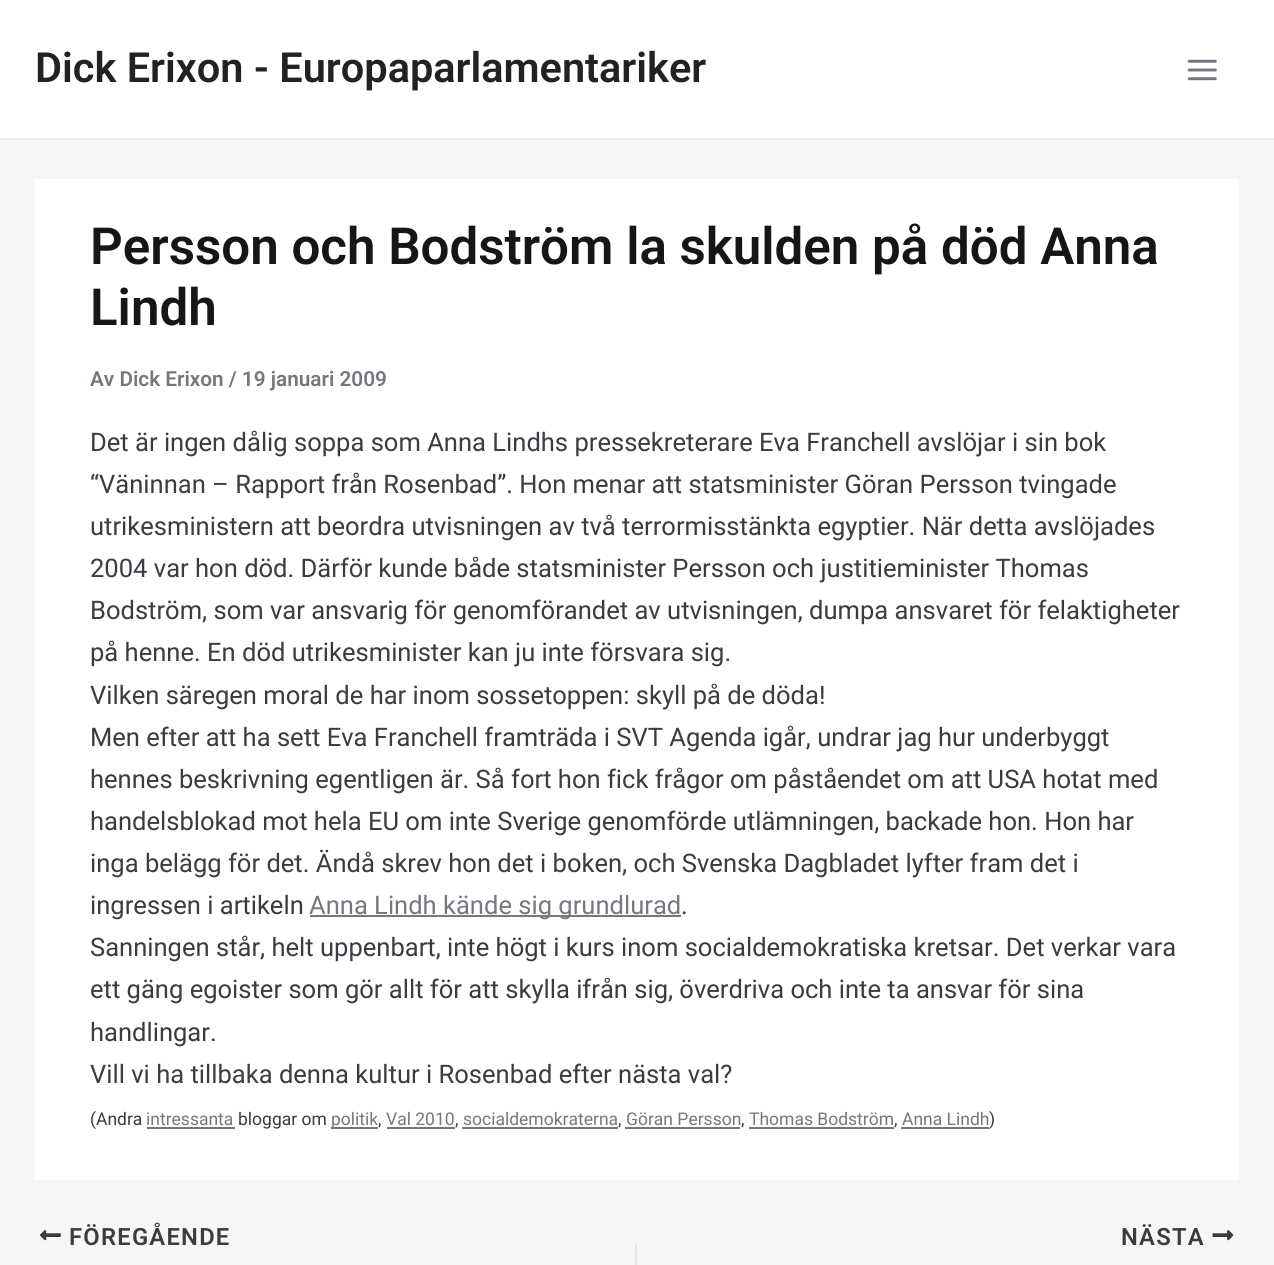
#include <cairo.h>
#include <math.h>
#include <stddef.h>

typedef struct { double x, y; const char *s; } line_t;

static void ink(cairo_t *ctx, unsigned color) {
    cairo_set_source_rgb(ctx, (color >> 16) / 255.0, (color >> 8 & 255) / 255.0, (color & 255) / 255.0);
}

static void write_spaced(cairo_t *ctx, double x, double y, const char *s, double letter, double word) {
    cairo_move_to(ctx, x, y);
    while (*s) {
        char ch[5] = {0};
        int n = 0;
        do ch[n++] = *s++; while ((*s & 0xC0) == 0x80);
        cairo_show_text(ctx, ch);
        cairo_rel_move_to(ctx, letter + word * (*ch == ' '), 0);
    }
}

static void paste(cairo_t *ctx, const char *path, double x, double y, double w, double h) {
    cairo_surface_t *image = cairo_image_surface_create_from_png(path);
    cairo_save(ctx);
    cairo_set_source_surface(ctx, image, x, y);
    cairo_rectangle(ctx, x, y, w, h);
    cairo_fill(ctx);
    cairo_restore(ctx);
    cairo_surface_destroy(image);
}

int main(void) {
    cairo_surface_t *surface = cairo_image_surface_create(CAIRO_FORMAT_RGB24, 1274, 1265);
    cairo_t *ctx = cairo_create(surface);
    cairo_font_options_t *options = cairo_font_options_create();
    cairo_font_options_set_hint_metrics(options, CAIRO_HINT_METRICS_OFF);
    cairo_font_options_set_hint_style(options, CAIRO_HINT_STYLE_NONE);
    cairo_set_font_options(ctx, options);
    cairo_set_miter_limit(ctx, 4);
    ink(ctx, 0xF6F6F6);
    cairo_paint(ctx);
    ink(ctx, 0xFFFFFF);
    cairo_rectangle(ctx, 0, 0, 1274, 138);
    cairo_fill(ctx);
    ink(ctx, 0xEAEAEA);
    cairo_rectangle(ctx, 0, 138, 1274, 2);
    cairo_fill(ctx);
    cairo_select_font_face(ctx, "Roboto SemiBold", CAIRO_FONT_SLANT_NORMAL, CAIRO_FONT_WEIGHT_NORMAL);
    cairo_set_font_size(ctx, 41.5);
    ink(ctx, 0x222222);
    cairo_move_to(ctx, 35, 82);
    cairo_show_text(ctx, "Dick Erixon - Europaparlamentariker");
    paste(ctx, "media/1.png", 1187, 59, 30, 22);
    ink(ctx, 0xFFFFFF);
    cairo_rectangle(ctx, 35, 179, 1204, 1001);
    cairo_fill(ctx);
    cairo_set_font_size(ctx, 51.1);
    ink(ctx, 0x151616);
    cairo_move_to(ctx, 90, 264);
    cairo_show_text(ctx, "Persson och Bodström la skulden på död Anna");
    cairo_move_to(ctx, 90, 325);
    cairo_show_text(ctx, "Lindh");
    cairo_set_font_size(ctx, 20.75);
    ink(ctx, 0x737880);
    cairo_move_to(ctx, 90, 386);
    cairo_show_text(ctx, "Av Dick Erixon / 19 januari 2009");
    cairo_select_font_face(ctx, "Roboto", CAIRO_FONT_SLANT_NORMAL, CAIRO_FONT_WEIGHT_NORMAL);
    cairo_set_font_size(ctx, 25.55);
    ink(ctx, 0x393C40);
    {
        static const line_t items[] = {
            {90, 451, "Det är ingen dålig soppa som Anna Lindhs pressekreterare Eva Franchell avslöjar i sin bok"},
            {90, 493, "“Väninnan – Rapport från Rosenbad”. Hon menar att statsminister Göran Persson tvingade"},
            {90, 535, "utrikesministern att beordra utvisningen av två terrormisstänkta egyptier. När detta avslöjades"},
            {90, 577, "2004 var hon död. Därför kunde både statsminister Persson och justitieminister Thomas"},
            {90, 619, "Bodström, som var ansvarig för genomförandet av utvisningen, dumpa ansvaret för felaktigheter"},
            {90, 661, "på henne. En död utrikesminister kan ju inte försvara sig."},
            {90, 704, "Vilken säregen moral de har inom sossetoppen: skyll på de döda!"},
            {90, 746, "Men efter att ha sett Eva Franchell framträda i SVT Agenda igår, undrar jag hur underbyggt"},
            {90, 788, "hennes beskrivning egentligen är. Så fort hon fick frågor om påståendet om att USA hotat med"},
            {90, 830, "handelsblokad mot hela EU om inte Sverige genomförde utlämningen, backade hon. Hon har"},
            {90, 872, "inga belägg för det. Ändå skrev hon det i boken, och Svenska Dagbladet lyfter fram det i"},
            {90, 914, "ingressen i artikeln"},
        };
        for (size_t i = 0; i < sizeof items / sizeof *items; i++) {
            cairo_move_to(ctx, items[i].x, items[i].y);
            cairo_show_text(ctx, items[i].s);
        }
    }
    ink(ctx, 0x737880);
    cairo_rectangle(ctx, 310, 915, 371, 2);
    cairo_fill(ctx);
    cairo_move_to(ctx, 309, 914);
    cairo_show_text(ctx, "Anna Lindh kände sig grundlurad");
    ink(ctx, 0x393C40);
    {
        static const line_t items[] = {
            {681, 914, "."},
            {90, 956, "Sanningen står, helt uppenbart, inte högt i kurs inom socialdemokratiska kretsar. Det verkar vara"},
            {90, 998, "ett gäng egoister som gör allt för att skylla ifrån sig, överdriva och inte ta ansvar för sina"},
            {90, 1041, "handlingar."},
            {90, 1083, "Vill vi ha tillbaka denna kultur i Rosenbad efter nästa val?"},
        };
        for (size_t i = 0; i < sizeof items / sizeof *items; i++) {
            cairo_move_to(ctx, items[i].x, items[i].y);
            cairo_show_text(ctx, items[i].s);
        }
    }
    cairo_set_font_size(ctx, 17.5);
    cairo_move_to(ctx, 90, 1125);
    cairo_show_text(ctx, "(Andra");
    ink(ctx, 0x737880);
    cairo_move_to(ctx, 146, 1125);
    cairo_show_text(ctx, "intressanta");
    cairo_rectangle(ctx, 147, 1127, 88, 2);
    cairo_fill(ctx);
    ink(ctx, 0x393C40);
    cairo_move_to(ctx, 238, 1125);
    cairo_show_text(ctx, "bloggar om");
    ink(ctx, 0x737880);
    cairo_rectangle(ctx, 331, 1127, 47, 2);
    cairo_fill(ctx);
    cairo_move_to(ctx, 331, 1125);
    cairo_show_text(ctx, "politik");
    ink(ctx, 0x393C40);
    cairo_move_to(ctx, 378, 1125);
    cairo_show_text(ctx, ",");
    ink(ctx, 0x737880);
    cairo_move_to(ctx, 386, 1125);
    cairo_show_text(ctx, "Val 2010");
    ink(ctx, 0x393C40);
    cairo_move_to(ctx, 455, 1125);
    cairo_show_text(ctx, ",");
    ink(ctx, 0x737880);
    cairo_rectangle(ctx, 387, 1127, 68, 2);
    cairo_fill(ctx);
    cairo_move_to(ctx, 463, 1125);
    cairo_show_text(ctx, "socialdemokraterna");
    ink(ctx, 0x393C40);
    cairo_move_to(ctx, 618, 1125);
    cairo_show_text(ctx, ",");
    ink(ctx, 0x737880);
    cairo_rectangle(ctx, 462, 1127, 156, 2);
    cairo_fill(ctx);
    cairo_move_to(ctx, 626, 1125);
    cairo_show_text(ctx, "Göran Persson");
    ink(ctx, 0x393C40);
    cairo_move_to(ctx, 741, 1125);
    cairo_show_text(ctx, ",");
    ink(ctx, 0x737880);
    cairo_rectangle(ctx, 625, 1127, 115, 2);
    cairo_fill(ctx);
    cairo_move_to(ctx, 749, 1125);
    cairo_show_text(ctx, "Thomas Bodström");
    ink(ctx, 0x393C40);
    cairo_move_to(ctx, 894, 1125);
    cairo_show_text(ctx, ",");
    ink(ctx, 0x737880);
    cairo_rectangle(ctx, 749, 1127, 145, 2);
    cairo_fill(ctx);
    cairo_rectangle(ctx, 901, 1127, 88, 2);
    cairo_fill(ctx);
    cairo_move_to(ctx, 902, 1125);
    cairo_show_text(ctx, "Anna Lindh");
    ink(ctx, 0x393C40);
    cairo_move_to(ctx, 989, 1125);
    cairo_show_text(ctx, ")");
    paste(ctx, "media/2.png", 40, 1230, 21, 11);
    cairo_select_font_face(ctx, "Roboto SemiBold", CAIRO_FONT_SLANT_NORMAL, CAIRO_FONT_WEIGHT_NORMAL);
    cairo_set_font_size(ctx, 23.75);
    write_spaced(ctx, 69, 1245, "FÖREGÅENDE", 1.25, 0);
    ink(ctx, 0xE1E8ED);
    cairo_rectangle(ctx, 635, 1244, 2, 21);
    cairo_fill(ctx);
    ink(ctx, 0x393C40);
    write_spaced(ctx, 1121, 1245, "NÄSTA", 1.25, 0);
    paste(ctx, "media/3.png", 1212, 1230, 22, 11);
    cairo_surface_write_to_png(surface, "image.png");
    cairo_font_options_destroy(options);
    cairo_destroy(ctx);
    cairo_surface_destroy(surface);
    return 0;
}
